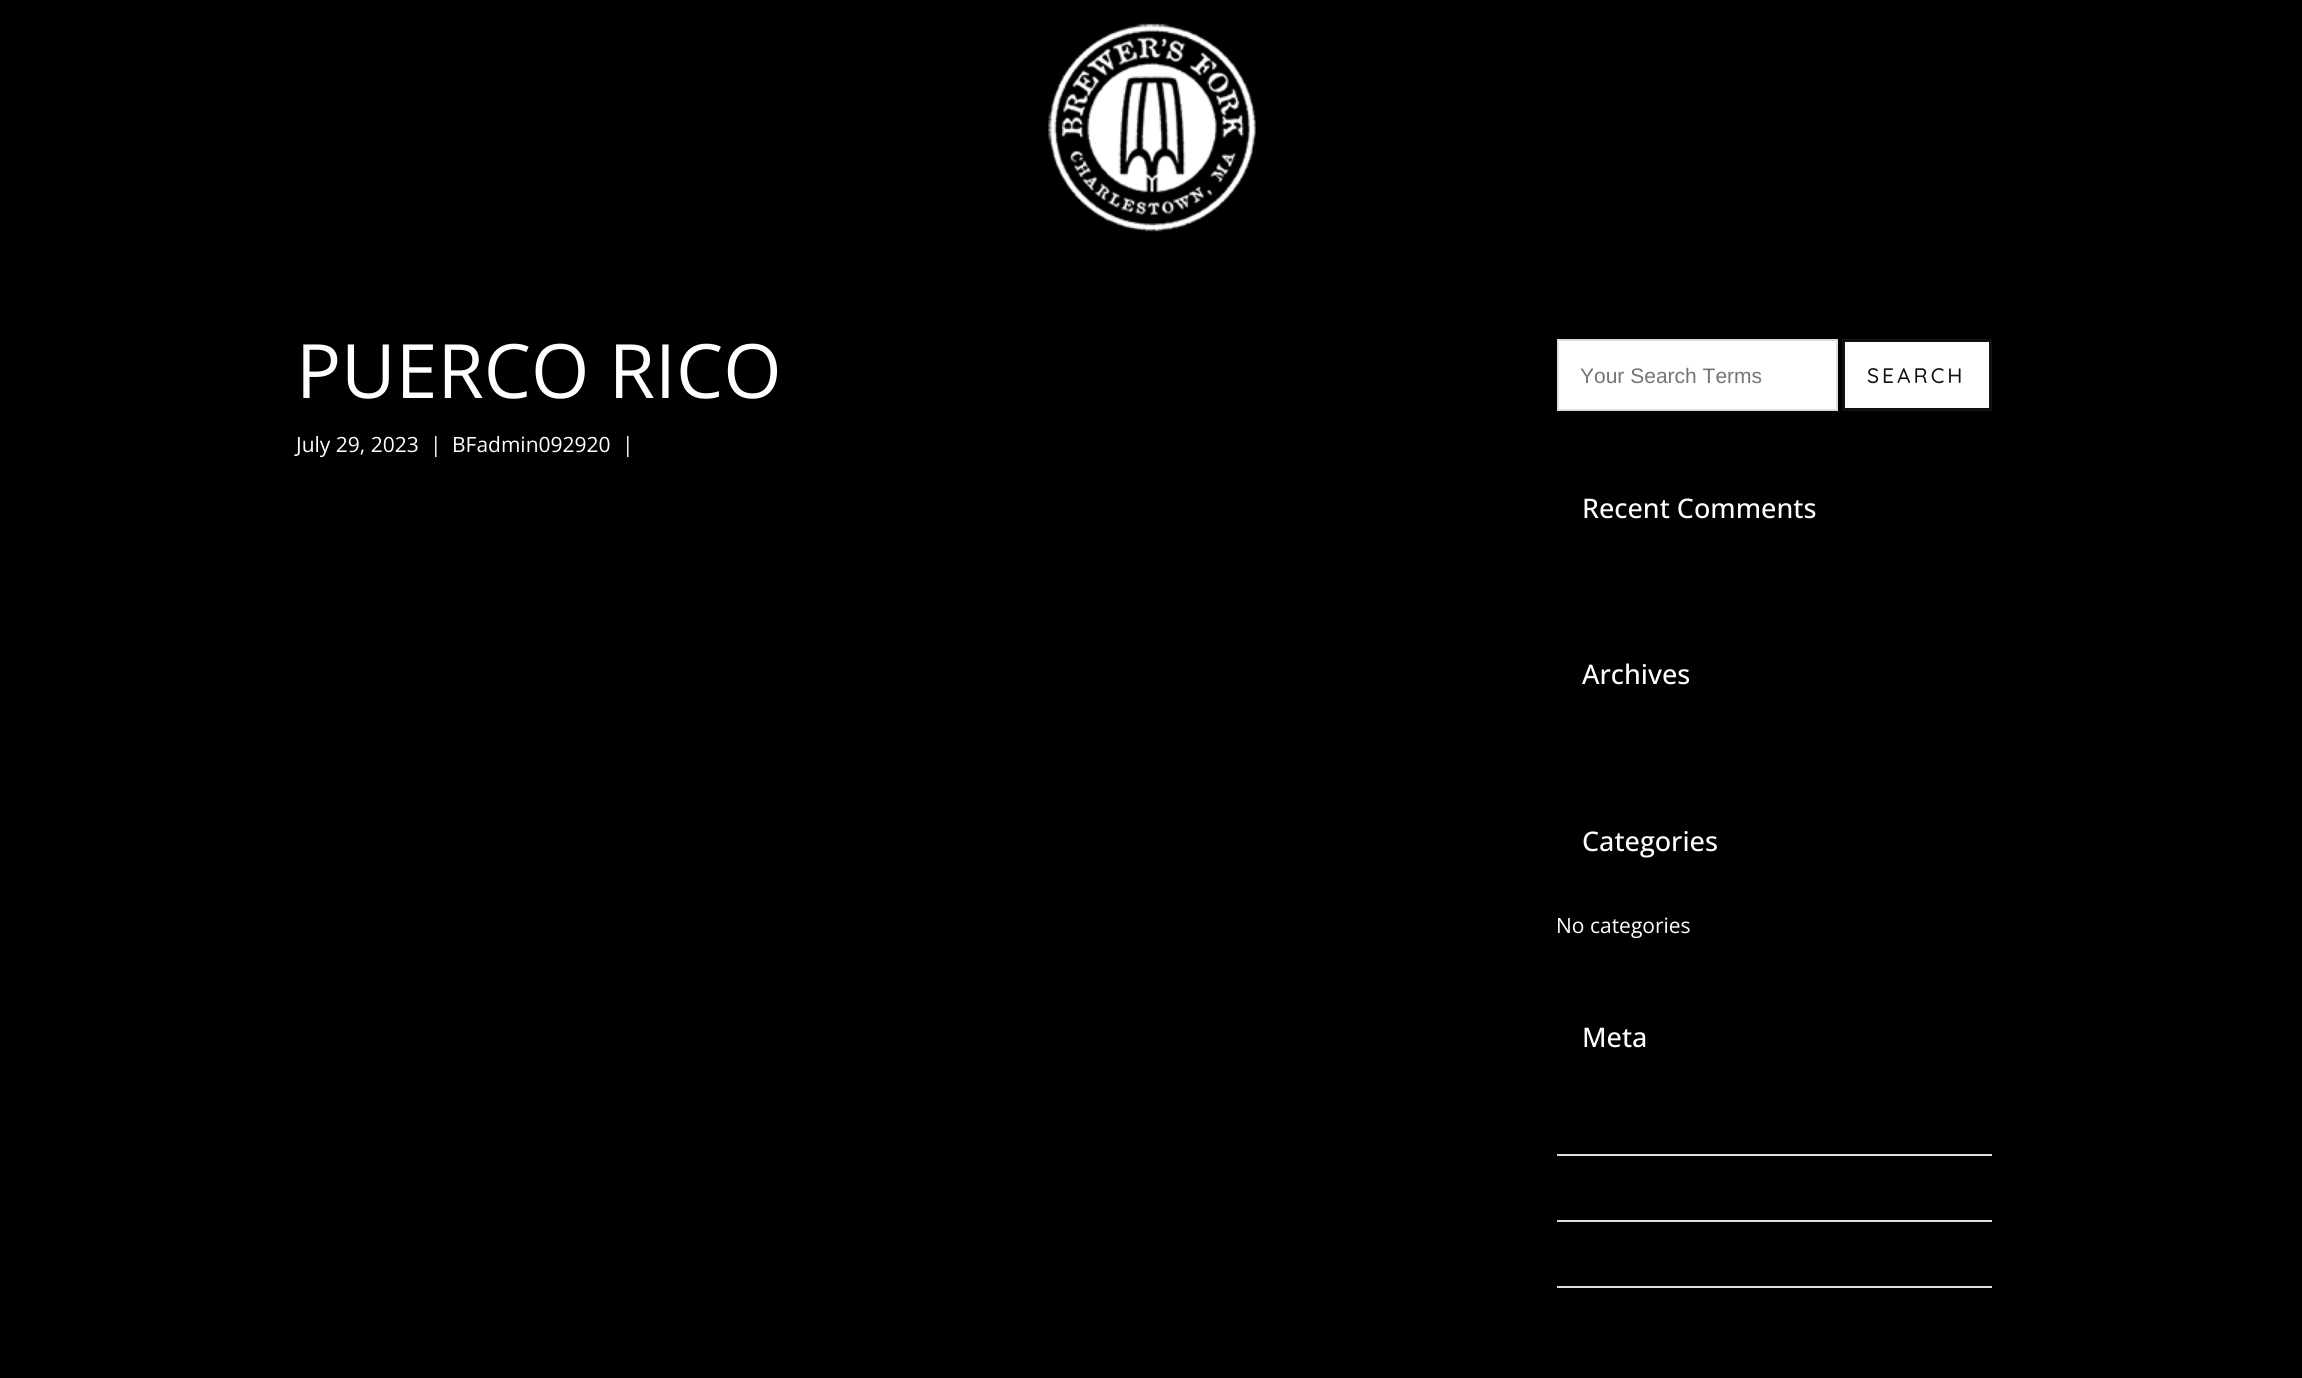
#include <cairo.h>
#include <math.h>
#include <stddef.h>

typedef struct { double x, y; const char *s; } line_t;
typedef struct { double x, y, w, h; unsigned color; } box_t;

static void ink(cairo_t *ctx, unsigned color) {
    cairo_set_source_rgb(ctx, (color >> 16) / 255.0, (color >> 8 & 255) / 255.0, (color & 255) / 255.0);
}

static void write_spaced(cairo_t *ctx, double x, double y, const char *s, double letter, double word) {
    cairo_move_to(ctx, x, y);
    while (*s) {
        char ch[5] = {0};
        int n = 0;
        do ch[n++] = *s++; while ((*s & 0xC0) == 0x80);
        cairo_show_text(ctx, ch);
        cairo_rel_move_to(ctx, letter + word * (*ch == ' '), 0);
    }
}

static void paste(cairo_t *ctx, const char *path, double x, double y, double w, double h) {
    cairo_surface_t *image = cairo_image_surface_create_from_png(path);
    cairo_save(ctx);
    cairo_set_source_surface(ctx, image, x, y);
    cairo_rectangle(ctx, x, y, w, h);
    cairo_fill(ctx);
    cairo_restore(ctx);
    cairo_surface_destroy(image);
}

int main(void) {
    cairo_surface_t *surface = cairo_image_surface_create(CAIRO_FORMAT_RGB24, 2302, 1378);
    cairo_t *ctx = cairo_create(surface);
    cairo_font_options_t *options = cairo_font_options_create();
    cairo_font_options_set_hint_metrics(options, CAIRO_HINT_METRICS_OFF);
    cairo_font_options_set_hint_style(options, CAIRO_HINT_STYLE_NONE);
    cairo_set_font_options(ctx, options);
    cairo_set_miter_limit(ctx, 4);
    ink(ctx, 0x000000);
    cairo_paint(ctx);
    paste(ctx, "media/1.png", 1048, 23, 208, 209);
    cairo_select_font_face(ctx, "Open Sans", CAIRO_FONT_SLANT_NORMAL, CAIRO_FONT_WEIGHT_NORMAL);
    cairo_set_font_size(ctx, 75);
    ink(ctx, 0xFFFFFF);
    cairo_move_to(ctx, 296, 398);
    cairo_show_text(ctx, "PUERCO RICO");
    cairo_set_font_size(ctx, 21);
    {
        static const line_t items[] = {
            {296, 452, "July 29, 2023"},
            {430, 452, "|"},
            {452, 452, "BFadmin092920"},
            {622, 452, "|"},
        };
        for (size_t i = 0; i < sizeof items / sizeof *items; i++) {
            cairo_move_to(ctx, items[i].x, items[i].y);
            cairo_show_text(ctx, items[i].s);
        }
    }
    cairo_rectangle(ctx, 1558, 340, 279, 70);
    cairo_fill_preserve(ctx);
    ink(ctx, 0xDDDDDD);
    cairo_stroke(ctx);
    cairo_select_font_face(ctx, "Liberation Sans", CAIRO_FONT_SLANT_NORMAL, CAIRO_FONT_WEIGHT_NORMAL);
    ink(ctx, 0x757575);
    cairo_move_to(ctx, 1580, 383);
    cairo_show_text(ctx, "Your Search Terms");
    ink(ctx, 0xFFFFFF);
    cairo_rectangle(ctx, 1843.5, 340.5, 147, 69);
    cairo_fill_preserve(ctx);
    ink(ctx, 0x111111);
    cairo_set_line_width(ctx, 3);
    cairo_stroke(ctx);
    cairo_select_font_face(ctx, "Quicksand Medium", CAIRO_FONT_SLANT_NORMAL, CAIRO_FONT_WEIGHT_NORMAL);
    write_spaced(ctx, 1867, 383, "SEARCH", 3, 0);
    cairo_select_font_face(ctx, "Open Sans Medium", CAIRO_FONT_SLANT_NORMAL, CAIRO_FONT_WEIGHT_NORMAL);
    cairo_set_font_size(ctx, 27);
    ink(ctx, 0xFFFFFF);
    {
        static const line_t items[] = {
            {1582, 518, "Recent Comments"},
            {1582, 684, "Archives"},
            {1582, 851, "Categories"},
        };
        for (size_t i = 0; i < sizeof items / sizeof *items; i++) {
            cairo_move_to(ctx, items[i].x, items[i].y);
            cairo_show_text(ctx, items[i].s);
        }
    }
    cairo_select_font_face(ctx, "Open Sans", CAIRO_FONT_SLANT_NORMAL, CAIRO_FONT_WEIGHT_NORMAL);
    cairo_set_font_size(ctx, 21);
    cairo_move_to(ctx, 1556, 933);
    cairo_show_text(ctx, "No categories");
    cairo_select_font_face(ctx, "Open Sans Medium", CAIRO_FONT_SLANT_NORMAL, CAIRO_FONT_WEIGHT_NORMAL);
    cairo_set_font_size(ctx, 27);
    cairo_move_to(ctx, 1582, 1047);
    cairo_show_text(ctx, "Meta");
    {
        static const box_t items[] = {
            {1557, 1154, 435, 2, 0xDDDDDD},
            {1557, 1220, 435, 2, 0xDDDDDD},
            {1557, 1286, 435, 2, 0xDDDDDD},
        };
        for (size_t i = 0; i < sizeof items / sizeof *items; i++) {
            ink(ctx, items[i].color);
            cairo_rectangle(ctx, items[i].x, items[i].y, items[i].w, items[i].h);
            cairo_fill(ctx);
        }
    }
    cairo_surface_write_to_png(surface, "image.png");
    cairo_font_options_destroy(options);
    cairo_destroy(ctx);
    cairo_surface_destroy(surface);
    return 0;
}
